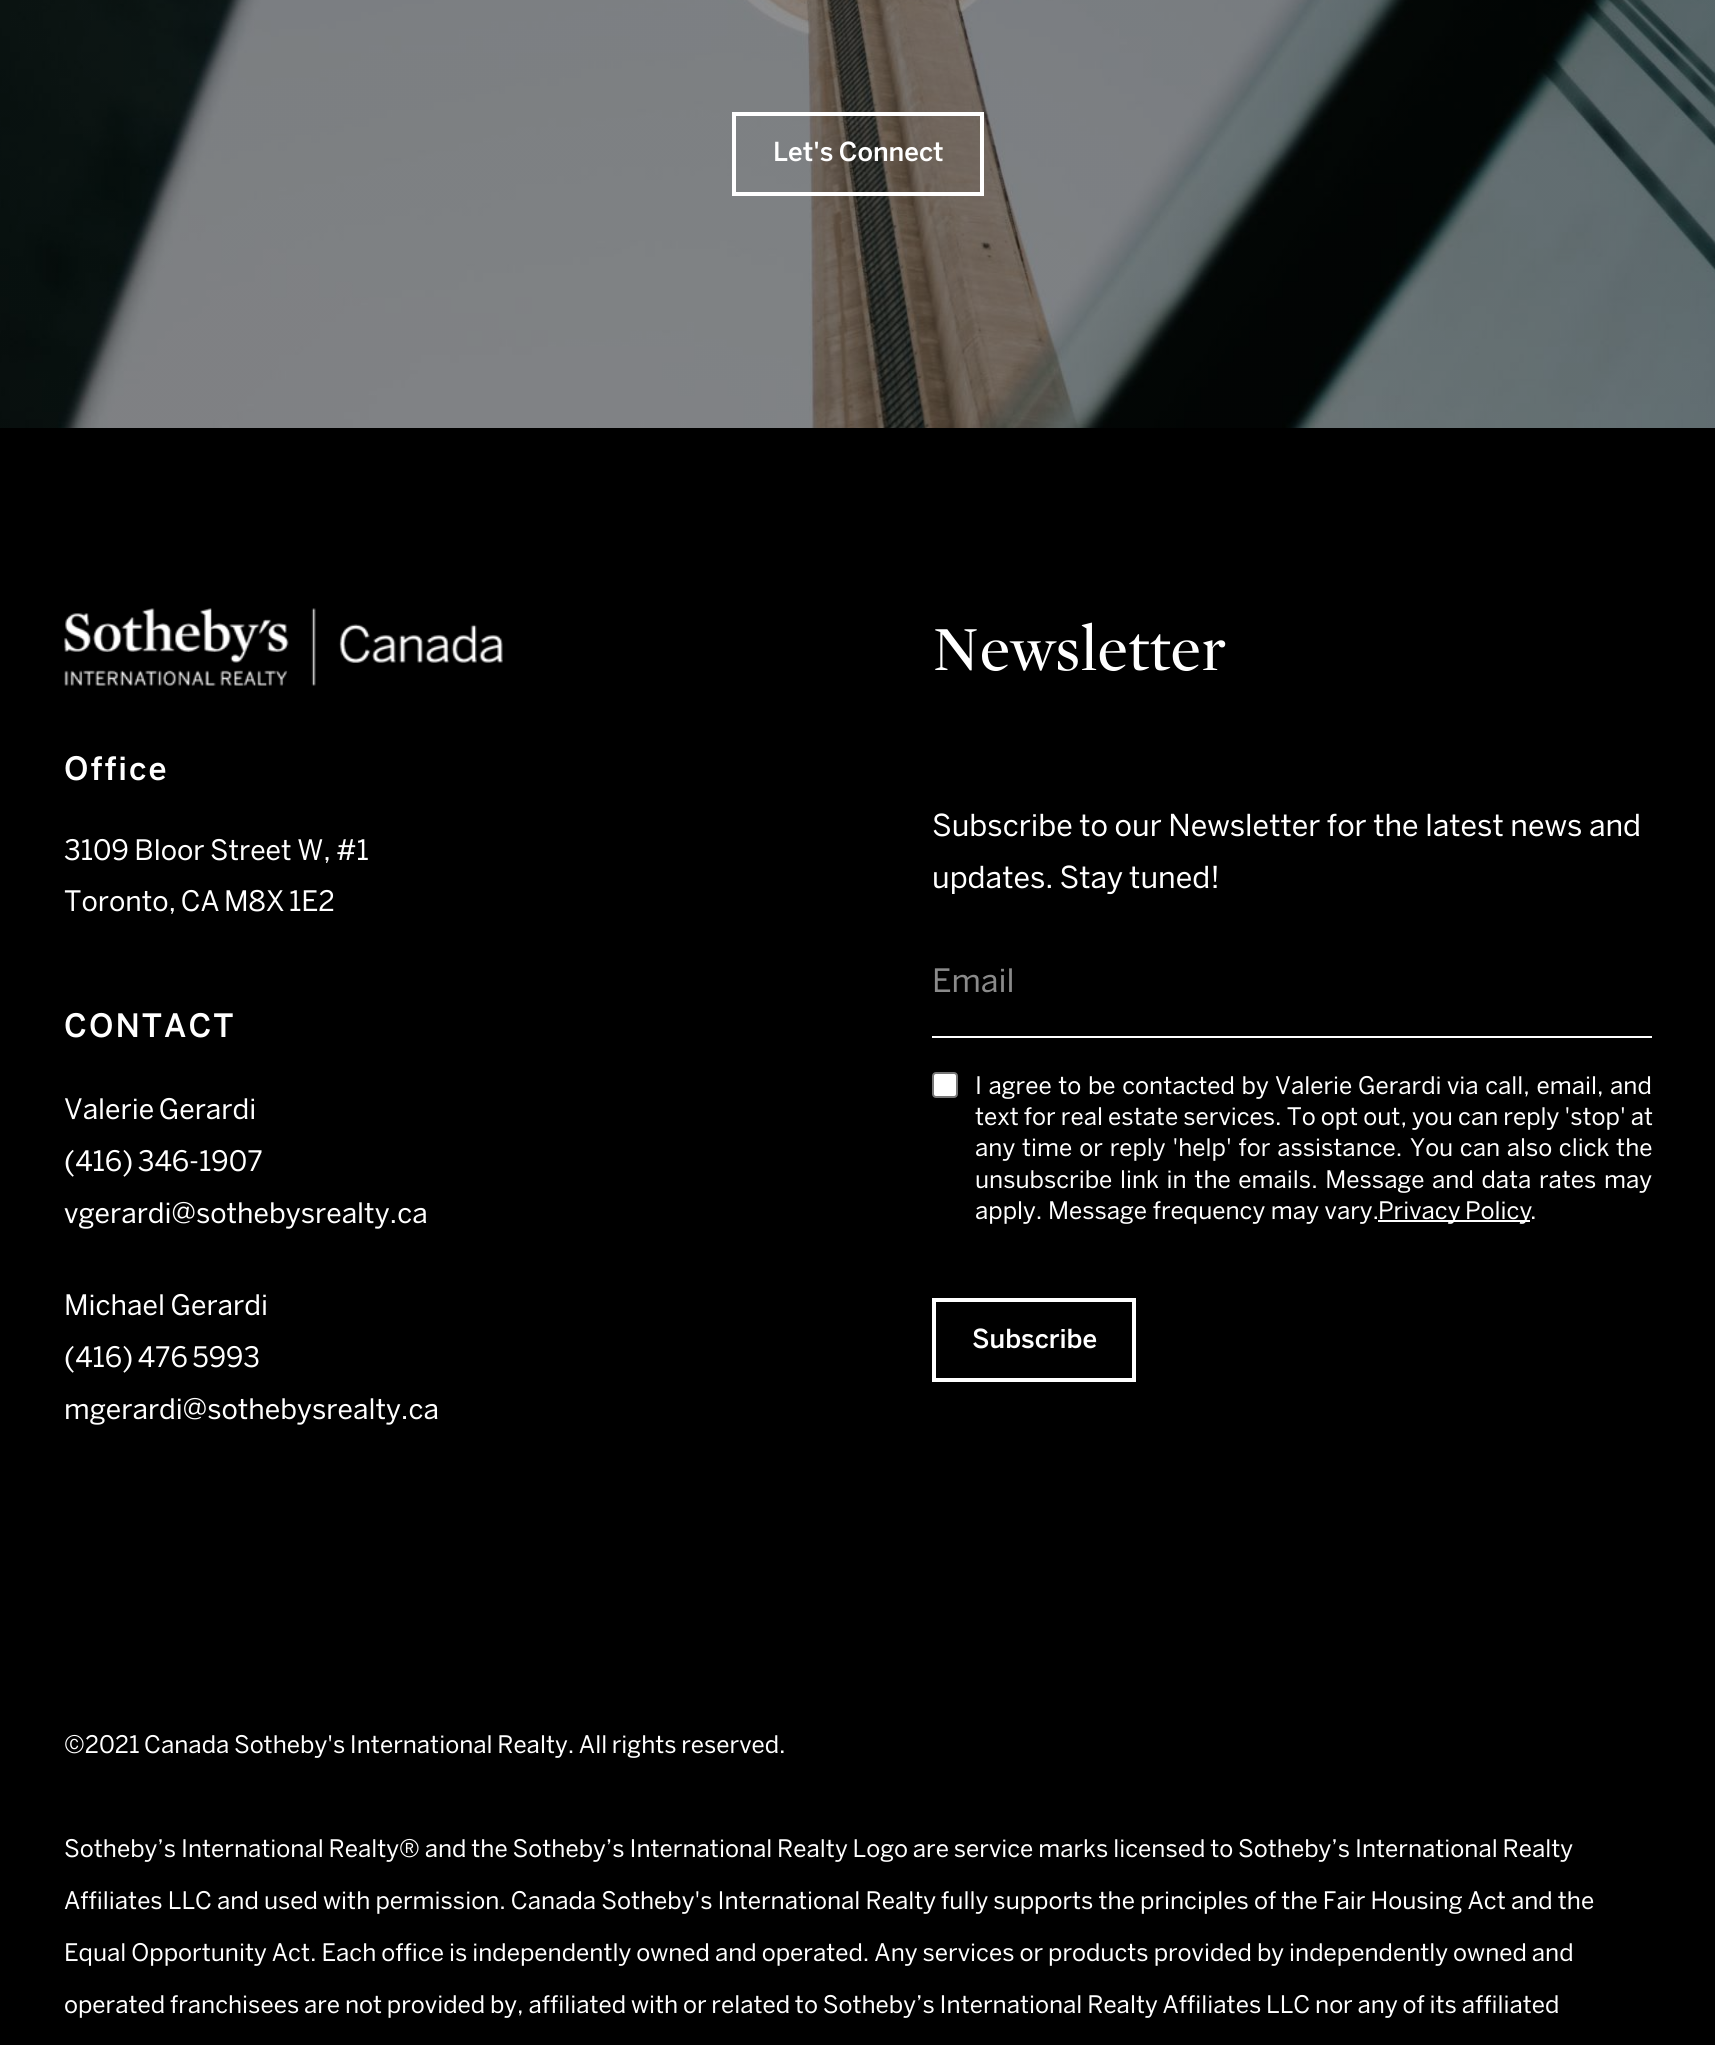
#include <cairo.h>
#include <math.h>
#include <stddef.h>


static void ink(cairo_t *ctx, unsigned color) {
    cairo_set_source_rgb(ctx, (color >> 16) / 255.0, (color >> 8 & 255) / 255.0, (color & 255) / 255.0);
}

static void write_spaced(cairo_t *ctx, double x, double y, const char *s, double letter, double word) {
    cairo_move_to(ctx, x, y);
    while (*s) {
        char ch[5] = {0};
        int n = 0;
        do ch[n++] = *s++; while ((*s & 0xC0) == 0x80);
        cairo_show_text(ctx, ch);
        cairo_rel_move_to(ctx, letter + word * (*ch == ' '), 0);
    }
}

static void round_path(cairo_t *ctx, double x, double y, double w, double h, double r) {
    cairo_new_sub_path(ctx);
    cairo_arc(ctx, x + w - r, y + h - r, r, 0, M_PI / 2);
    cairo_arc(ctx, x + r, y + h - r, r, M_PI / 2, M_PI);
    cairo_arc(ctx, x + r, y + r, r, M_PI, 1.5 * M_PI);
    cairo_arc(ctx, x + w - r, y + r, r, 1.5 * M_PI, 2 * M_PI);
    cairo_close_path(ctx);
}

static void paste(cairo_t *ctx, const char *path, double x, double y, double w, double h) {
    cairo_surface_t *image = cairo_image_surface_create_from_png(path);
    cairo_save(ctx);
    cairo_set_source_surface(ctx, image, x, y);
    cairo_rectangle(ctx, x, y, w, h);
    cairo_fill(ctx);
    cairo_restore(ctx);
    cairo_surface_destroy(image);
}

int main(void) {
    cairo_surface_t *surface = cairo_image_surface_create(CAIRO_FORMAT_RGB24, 1715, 2045);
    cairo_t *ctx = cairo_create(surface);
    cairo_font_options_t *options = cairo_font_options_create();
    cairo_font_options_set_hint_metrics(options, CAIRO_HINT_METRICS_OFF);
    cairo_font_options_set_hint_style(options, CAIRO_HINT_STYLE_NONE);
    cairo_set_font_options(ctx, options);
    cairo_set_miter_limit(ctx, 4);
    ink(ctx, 0xFFFFFF);
    cairo_paint(ctx);
    paste(ctx, "media/1.png", 0, 0, 1715, 428);
    cairo_rectangle(ctx, 734, 114, 248, 80);
    ink(ctx, 0xFFFFFF);
    cairo_set_line_width(ctx, 4);
    cairo_stroke(ctx);
    cairo_select_font_face(ctx, "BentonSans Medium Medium", CAIRO_FONT_SLANT_NORMAL, CAIRO_FONT_WEIGHT_NORMAL);
    cairo_set_font_size(ctx, 26);
    write_spaced(ctx, 773, 161, "Let's Connect", 0, -1);
    ink(ctx, 0x000000);
    cairo_rectangle(ctx, 0, 428, 1715, 1617);
    cairo_fill(ctx);
    paste(ctx, "media/2.png", 64, 608, 439, 78);
    cairo_set_font_size(ctx, 32);
    ink(ctx, 0xFFFFFF);
    write_spaced(ctx, 64, 780, "Office", 2, 0);
    cairo_select_font_face(ctx, "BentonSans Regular", CAIRO_FONT_SLANT_NORMAL, CAIRO_FONT_WEIGHT_NORMAL);
    cairo_set_font_size(ctx, 28);
    write_spaced(ctx, 64, 860, "3109 Bloor Street W, #1", 0, -1);
    write_spaced(ctx, 64, 911, "Toronto, CA M8X 1E2", 0, -2);
    cairo_select_font_face(ctx, "BentonSans Medium Medium", CAIRO_FONT_SLANT_NORMAL, CAIRO_FONT_WEIGHT_NORMAL);
    cairo_set_font_size(ctx, 32);
    write_spaced(ctx, 64, 1037, "CONTACT", 2, 0);
    cairo_select_font_face(ctx, "BentonSans Regular", CAIRO_FONT_SLANT_NORMAL, CAIRO_FONT_WEIGHT_NORMAL);
    cairo_set_font_size(ctx, 28);
    write_spaced(ctx, 64, 1119, "Valerie Gerardi", 0, -2);
    write_spaced(ctx, 64, 1171, "(416) 346-1907", 0, -2);
    cairo_move_to(ctx, 64, 1223);
    cairo_show_text(ctx, "vgerardi@sothebysrealty.ca");
    write_spaced(ctx, 64, 1315, "Michael Gerardi", 0, -1);
    write_spaced(ctx, 64, 1367, "(416) 476 5993", 0, -2);
    cairo_move_to(ctx, 64, 1419);
    cairo_show_text(ctx, "mgerardi@sothebysrealty.ca");
    cairo_select_font_face(ctx, "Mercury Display", CAIRO_FONT_SLANT_NORMAL, CAIRO_FONT_WEIGHT_NORMAL);
    cairo_set_font_size(ctx, 64);
    cairo_move_to(ctx, 932, 670);
    cairo_show_text(ctx, "Newsletter");
    cairo_select_font_face(ctx, "BentonSans Regular", CAIRO_FONT_SLANT_NORMAL, CAIRO_FONT_WEIGHT_NORMAL);
    cairo_set_font_size(ctx, 30);
    write_spaced(ctx, 932, 836, "Subscribe to our Newsletter for the latest news and", 0, -0.5);
    write_spaced(ctx, 932, 888, "updates. Stay tuned!", 0, -1);
    cairo_rectangle(ctx, 932, 1036, 720, 2);
    cairo_fill(ctx);
    cairo_set_font_size(ctx, 32);
    ink(ctx, 0x8A8A8A);
    cairo_move_to(ctx, 932, 992);
    cairo_show_text(ctx, "Email");
    ink(ctx, 0xFFFFFF);
    round_path(ctx, 933, 1073, 24, 24, 3);
    cairo_fill_preserve(ctx);
    ink(ctx, 0x767676);
    cairo_set_line_width(ctx, 2);
    cairo_stroke(ctx);
    cairo_set_font_size(ctx, 24);
    ink(ctx, 0xFFFFFF);
    write_spaced(ctx, 975, 1094, "I agree to be contacted by", 0, 1);
    cairo_move_to(ctx, 1275, 1094);
    cairo_show_text(ctx, "Valerie Gerardi");
    write_spaced(ctx, 1447, 1094, "via call, email, and", 0, 1);
    write_spaced(ctx, 975, 1125, "text for real estate services. To opt out, you can reply 'stop' at", 0, -0.5);
    write_spaced(ctx, 975, 1156, "any time or reply 'help' for assistance.", 0, 1.25);
    write_spaced(ctx, 1410, 1156, "You can also click the", 0, 1);
    write_spaced(ctx, 975, 1188, "unsubscribe link in the emails. Message and data rates may", 0, 2);
    cairo_move_to(ctx, 975, 1219);
    cairo_show_text(ctx, "apply. Message frequency may vary.");
    cairo_rectangle(ctx, 1378, 1220, 152, 2);
    cairo_fill(ctx);
    write_spaced(ctx, 1378, 1219, "Privacy Policy", 0, -1);
    cairo_move_to(ctx, 1530, 1219);
    cairo_show_text(ctx, ".");
    cairo_rectangle(ctx, 934, 1300, 200, 80);
    cairo_set_line_width(ctx, 4);
    cairo_stroke(ctx);
    cairo_select_font_face(ctx, "BentonSans Medium Medium", CAIRO_FONT_SLANT_NORMAL, CAIRO_FONT_WEIGHT_NORMAL);
    cairo_set_font_size(ctx, 26);
    cairo_move_to(ctx, 972, 1348);
    cairo_show_text(ctx, "Subscribe");
    cairo_select_font_face(ctx, "BentonSans Regular", CAIRO_FONT_SLANT_NORMAL, CAIRO_FONT_WEIGHT_NORMAL);
    cairo_set_font_size(ctx, 24);
    write_spaced(ctx, 64, 1753, "©2021 Canada Sotheby's International Realty. All rights reserved.", 0, -1);
    write_spaced(ctx, 64, 1857, "Sotheby’s International Realty® and the Sotheby’s International Realty Logo are service marks licensed to Sotheby’s International Realty", 0, -0.75);
    write_spaced(ctx, 64, 1909, "Affiliates LLC and used with permission. Canada Sotheby's International Realty fully supports the principles of the Fair Housing Act and the", 0, -0.5);
    write_spaced(ctx, 64, 1961, "Equal Opportunity Act. Each office is independently owned and operated. Any services or products provided by independently owned and", 0, -0.6);
    write_spaced(ctx, 64, 2013, "operated franchisees are not provided by, affiliated with or related to Sotheby’s International Realty Affiliates LLC nor any of its affiliated", 0, -0.8);
    cairo_surface_write_to_png(surface, "image.png");
    cairo_font_options_destroy(options);
    cairo_destroy(ctx);
    cairo_surface_destroy(surface);
    return 0;
}
